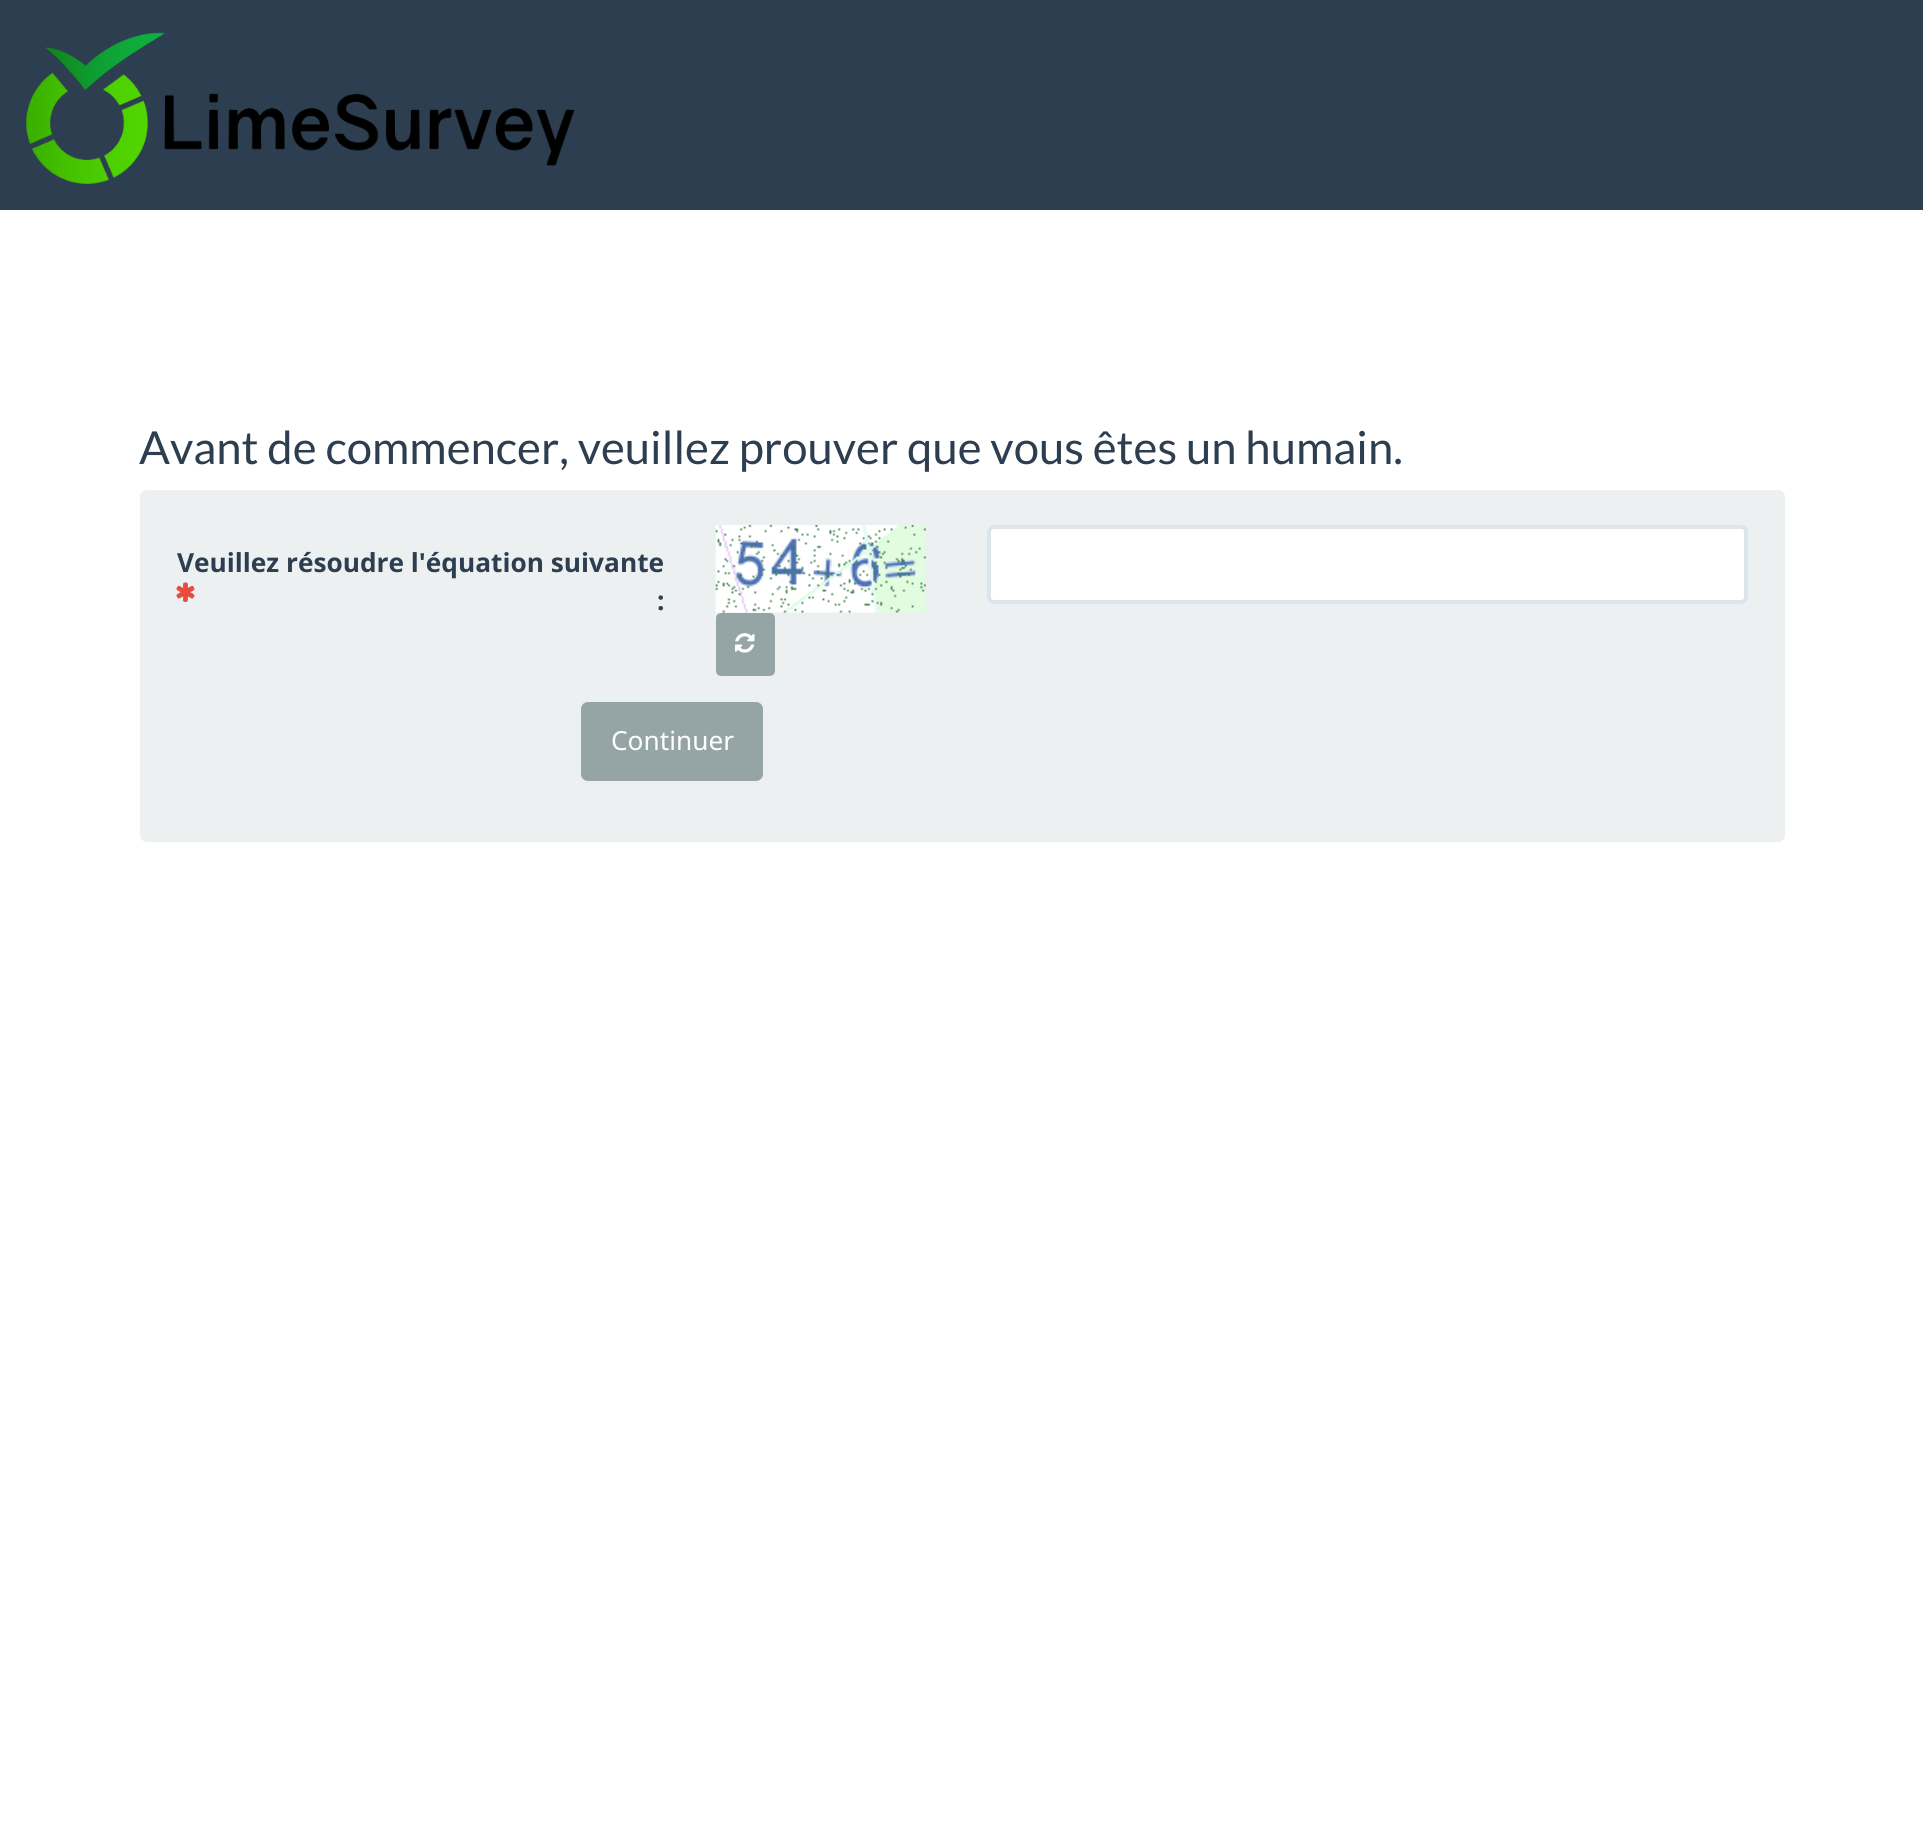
#include <cairo.h>
#include <math.h>
#include <stddef.h>


static void ink(cairo_t *ctx, unsigned color) {
    cairo_set_source_rgb(ctx, (color >> 16) / 255.0, (color >> 8 & 255) / 255.0, (color & 255) / 255.0);
}

static void round_path(cairo_t *ctx, double x, double y, double w, double h, double r) {
    cairo_new_sub_path(ctx);
    cairo_arc(ctx, x + w - r, y + h - r, r, 0, M_PI / 2);
    cairo_arc(ctx, x + r, y + h - r, r, M_PI / 2, M_PI);
    cairo_arc(ctx, x + r, y + r, r, M_PI, 1.5 * M_PI);
    cairo_arc(ctx, x + w - r, y + r, r, 1.5 * M_PI, 2 * M_PI);
    cairo_close_path(ctx);
}

static void paste(cairo_t *ctx, const char *path, double x, double y, double w, double h) {
    cairo_surface_t *image = cairo_image_surface_create_from_png(path);
    cairo_save(ctx);
    cairo_set_source_surface(ctx, image, x, y);
    cairo_rectangle(ctx, x, y, w, h);
    cairo_fill(ctx);
    cairo_restore(ctx);
    cairo_surface_destroy(image);
}

int main(void) {
    cairo_surface_t *surface = cairo_image_surface_create(CAIRO_FORMAT_RGB24, 1923, 1844);
    cairo_t *ctx = cairo_create(surface);
    cairo_font_options_t *options = cairo_font_options_create();
    cairo_font_options_set_hint_metrics(options, CAIRO_HINT_METRICS_OFF);
    cairo_font_options_set_hint_style(options, CAIRO_HINT_STYLE_NONE);
    cairo_set_font_options(ctx, options);
    cairo_set_miter_limit(ctx, 4);
    ink(ctx, 0xFFFFFF);
    cairo_paint(ctx);
    ink(ctx, 0x2C3E50);
    cairo_rectangle(ctx, 0, 0, 1923, 210);
    cairo_fill(ctx);
    paste(ctx, "media/1.png", 26, 32, 548, 152);
    cairo_select_font_face(ctx, "Lato", CAIRO_FONT_SLANT_NORMAL, CAIRO_FONT_WEIGHT_NORMAL);
    cairo_set_font_size(ctx, 45.5);
    cairo_move_to(ctx, 139, 464);
    cairo_show_text(ctx, "Avant de commencer, veuillez prouver que vous êtes un humain.");
    ink(ctx, 0xECF0F1);
    round_path(ctx, 140, 490, 1645, 352, 7);
    cairo_fill(ctx);
    cairo_select_font_face(ctx, "Noto Sans", CAIRO_FONT_SLANT_NORMAL, CAIRO_FONT_WEIGHT_BOLD);
    cairo_set_font_size(ctx, 26.25);
    ink(ctx, 0x2C3E50);
    cairo_move_to(ctx, 177, 572);
    cairo_show_text(ctx, "Veuillez résoudre l'équation suivante");
    paste(ctx, "media/2.png", 176, 582, 19, 20);
    cairo_move_to(ctx, 657, 610);
    cairo_show_text(ctx, ":");
    paste(ctx, "media/3.png", 715, 525, 211, 88);
    ink(ctx, 0x95A5A6);
    round_path(ctx, 718, 615, 55, 59, 3);
    cairo_fill_preserve(ctx);
    cairo_set_line_width(ctx, 4);
    cairo_stroke(ctx);
    paste(ctx, "media/4.png", 735, 633, 20, 20);
    ink(ctx, 0xFFFFFF);
    round_path(ctx, 989, 527, 757, 75, 5);
    cairo_fill_preserve(ctx);
    ink(ctx, 0xDCE4EC);
    cairo_stroke(ctx);
    ink(ctx, 0x95A5A6);
    round_path(ctx, 583, 704, 178, 75, 5);
    cairo_fill_preserve(ctx);
    cairo_stroke(ctx);
    cairo_select_font_face(ctx, "Noto Sans", CAIRO_FONT_SLANT_NORMAL, CAIRO_FONT_WEIGHT_NORMAL);
    ink(ctx, 0xFFFFFF);
    cairo_move_to(ctx, 611, 750);
    cairo_show_text(ctx, "Continuer");
    cairo_surface_write_to_png(surface, "image.png");
    cairo_font_options_destroy(options);
    cairo_destroy(ctx);
    cairo_surface_destroy(surface);
    return 0;
}
